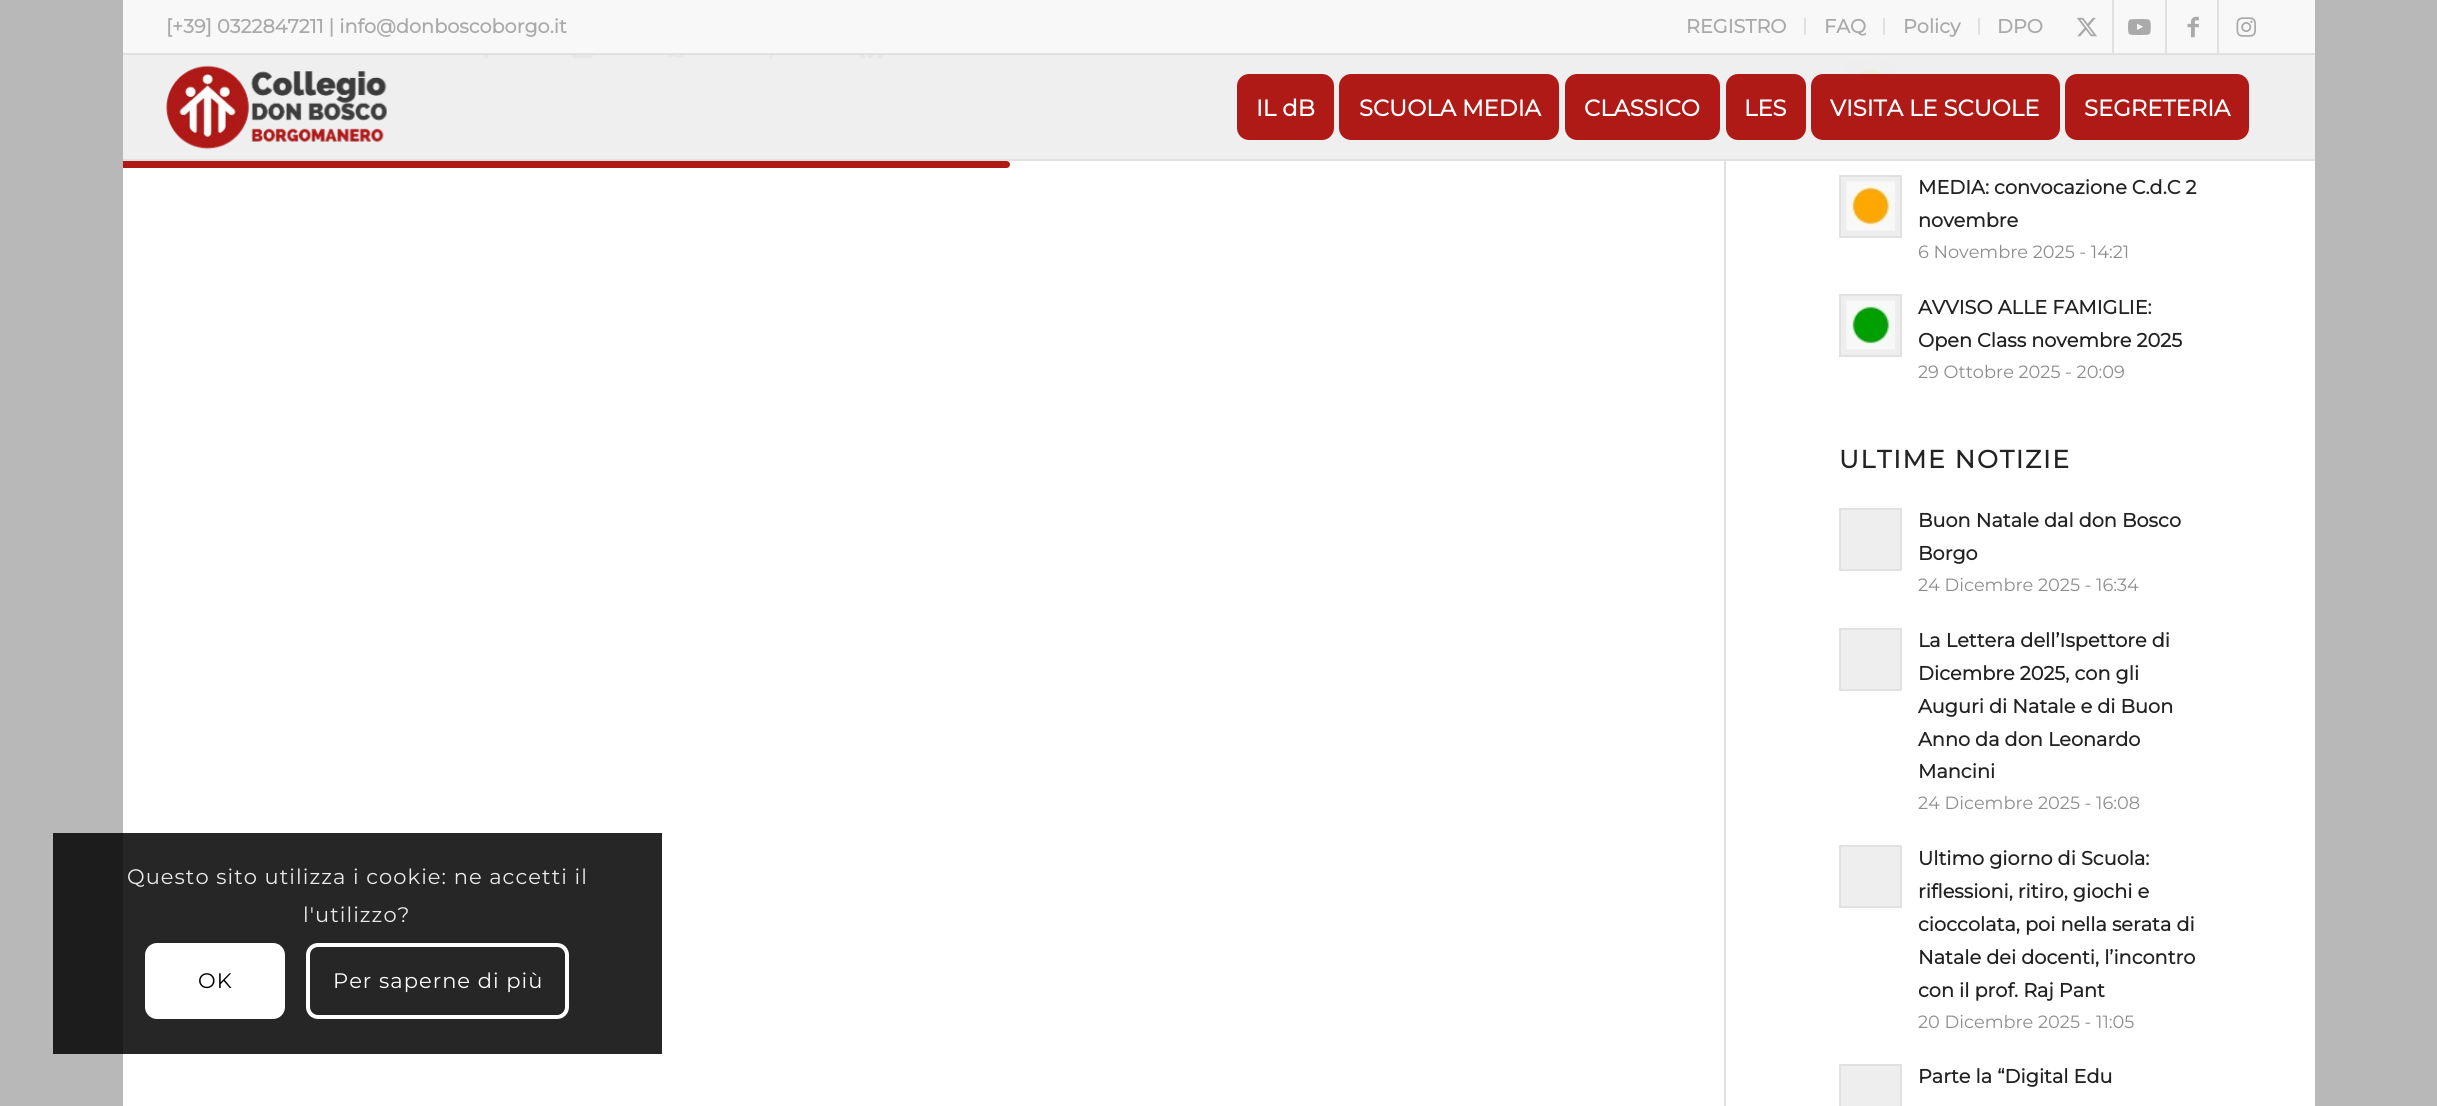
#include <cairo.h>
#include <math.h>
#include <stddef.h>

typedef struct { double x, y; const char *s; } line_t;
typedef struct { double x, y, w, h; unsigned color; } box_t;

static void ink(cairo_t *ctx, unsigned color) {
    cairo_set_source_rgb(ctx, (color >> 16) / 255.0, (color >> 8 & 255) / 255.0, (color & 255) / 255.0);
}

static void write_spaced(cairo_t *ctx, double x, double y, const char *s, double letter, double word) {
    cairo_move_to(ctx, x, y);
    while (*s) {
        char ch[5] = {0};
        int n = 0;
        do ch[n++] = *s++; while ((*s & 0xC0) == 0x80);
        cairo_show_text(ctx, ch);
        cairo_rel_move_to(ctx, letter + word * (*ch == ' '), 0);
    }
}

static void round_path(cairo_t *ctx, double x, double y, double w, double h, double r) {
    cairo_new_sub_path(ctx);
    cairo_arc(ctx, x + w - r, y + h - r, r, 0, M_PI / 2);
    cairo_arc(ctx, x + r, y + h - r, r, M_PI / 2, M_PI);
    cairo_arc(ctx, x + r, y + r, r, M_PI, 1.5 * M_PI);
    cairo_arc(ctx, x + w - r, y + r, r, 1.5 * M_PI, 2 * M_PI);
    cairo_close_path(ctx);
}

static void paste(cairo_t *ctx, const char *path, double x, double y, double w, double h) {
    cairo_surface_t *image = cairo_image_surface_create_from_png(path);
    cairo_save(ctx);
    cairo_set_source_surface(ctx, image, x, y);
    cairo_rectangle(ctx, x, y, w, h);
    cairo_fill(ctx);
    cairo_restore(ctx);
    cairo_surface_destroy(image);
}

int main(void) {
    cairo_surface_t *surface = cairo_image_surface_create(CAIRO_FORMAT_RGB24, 2437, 1106);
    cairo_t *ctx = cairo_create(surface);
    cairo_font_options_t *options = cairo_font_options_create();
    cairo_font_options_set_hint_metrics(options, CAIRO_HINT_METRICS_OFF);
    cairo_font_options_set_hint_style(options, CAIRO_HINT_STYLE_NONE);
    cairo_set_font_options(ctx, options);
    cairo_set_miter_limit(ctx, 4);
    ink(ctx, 0xB8B8B8);
    cairo_paint(ctx);
    {
        static const box_t items[] = {
            {53, 833, 70, 221, 0x1C1C1C},
            {123, 0, 2192, 53, 0xF8F8F8},
            {123, 53, 2192, 2, 0xE1E1E1},
        };
        for (size_t i = 0; i < sizeof items / sizeof *items; i++) {
            ink(ctx, items[i].color);
            cairo_rectangle(ctx, items[i].x, items[i].y, items[i].w, items[i].h);
            cairo_fill(ctx);
        }
    }
    cairo_select_font_face(ctx, "Montserrat", CAIRO_FONT_SLANT_NORMAL, CAIRO_FONT_WEIGHT_BOLD);
    cairo_set_font_size(ctx, 19.25);
    ink(ctx, 0xAAAAAA);
    cairo_move_to(ctx, 166, 33);
    cairo_show_text(ctx, "[+39] 0322847211 | info@donboscoborgo.it");
    ink(ctx, 0xE1E1E1);
    cairo_rectangle(ctx, 1804, 18, 2, 17);
    cairo_fill(ctx);
    ink(ctx, 0xAAAAAA);
    cairo_move_to(ctx, 1686, 33);
    cairo_show_text(ctx, "REGISTRO");
    ink(ctx, 0xE1E1E1);
    cairo_rectangle(ctx, 1883, 18, 2, 17);
    cairo_fill(ctx);
    ink(ctx, 0xAAAAAA);
    cairo_move_to(ctx, 1824, 33);
    cairo_show_text(ctx, "FAQ");
    ink(ctx, 0xE1E1E1);
    cairo_rectangle(ctx, 1978, 18, 2, 17);
    cairo_fill(ctx);
    ink(ctx, 0xAAAAAA);
    cairo_move_to(ctx, 1903, 33);
    cairo_show_text(ctx, "Policy");
    cairo_move_to(ctx, 1997, 33);
    cairo_show_text(ctx, "DPO");
    ink(ctx, 0xE1E1E1);
    cairo_rectangle(ctx, 2112, 0, 2, 53);
    cairo_fill(ctx);
    paste(ctx, "media/1.png", 2077, 17, 20, 20);
    cairo_rectangle(ctx, 2165, 0, 2, 53);
    cairo_fill(ctx);
    paste(ctx, "media/2.png", 2128, 19, 23, 17);
    cairo_rectangle(ctx, 2217, 0, 2, 53);
    cairo_fill(ctx);
    paste(ctx, "media/3.png", 2187, 16, 12, 22);
    paste(ctx, "media/4.png", 2236, 17, 20, 20);
    {
        static const box_t items[] = {
            {1724, 159, 2, 2, 0xEDEDED},
            {123, 159, 2192, 2, 0xE1E1E1},
            {123, 55, 2192, 104, 0xEFEFEF},
        };
        for (size_t i = 0; i < sizeof items / sizeof *items; i++) {
            ink(ctx, items[i].color);
            cairo_rectangle(ctx, items[i].x, items[i].y, items[i].w, items[i].h);
            cairo_fill(ctx);
        }
    }
    paste(ctx, "media/5.png", 166, 65, 221, 85);
    ink(ctx, 0xAF1A17);
    round_path(ctx, 1239, 76, 93, 62, 10);
    cairo_fill_preserve(ctx);
    cairo_set_line_width(ctx, 4);
    cairo_stroke(ctx);
    cairo_set_font_size(ctx, 22.75);
    ink(ctx, 0xFFFFFF);
    cairo_move_to(ctx, 1256, 116);
    cairo_show_text(ctx, "IL dB");
    ink(ctx, 0xAF1A17);
    round_path(ctx, 1341, 76, 216, 62, 10);
    cairo_fill_preserve(ctx);
    cairo_stroke(ctx);
    ink(ctx, 0xFFFFFF);
    cairo_move_to(ctx, 1359, 116);
    cairo_show_text(ctx, "SCUOLA MEDIA");
    ink(ctx, 0xAF1A17);
    round_path(ctx, 1567, 76, 151, 62, 10);
    cairo_fill_preserve(ctx);
    cairo_stroke(ctx);
    ink(ctx, 0xFFFFFF);
    cairo_move_to(ctx, 1584, 116);
    cairo_show_text(ctx, "CLASSICO");
    ink(ctx, 0xAF1A17);
    round_path(ctx, 1728, 76, 76, 62, 10);
    cairo_fill_preserve(ctx);
    cairo_stroke(ctx);
    ink(ctx, 0xFFFFFF);
    cairo_move_to(ctx, 1744, 116);
    cairo_show_text(ctx, "LES");
    ink(ctx, 0xAF1A17);
    round_path(ctx, 1813, 76, 245, 62, 10);
    cairo_fill_preserve(ctx);
    cairo_stroke(ctx);
    ink(ctx, 0xFFFFFF);
    cairo_move_to(ctx, 1830, 116);
    cairo_show_text(ctx, "VISITA LE SCUOLE");
    ink(ctx, 0xAF1A17);
    round_path(ctx, 2067, 76, 180, 62, 10);
    cairo_fill_preserve(ctx);
    cairo_stroke(ctx);
    ink(ctx, 0xFFFFFF);
    cairo_move_to(ctx, 2084, 116);
    cairo_show_text(ctx, "SEGRETERIA");
    cairo_rectangle(ctx, 123, 161, 2192, 945);
    cairo_fill(ctx);
    ink(ctx, 0xAF1A17);
    cairo_new_path(ctx);
    cairo_move_to(ctx, 123, 161);
    cairo_line_to(ctx, 1006.5, 161);
    cairo_curve_to(ctx, 1008.5, 161, 1010, 162.5, 1010, 164.5);
    cairo_curve_to(ctx, 1010, 166.5, 1008.5, 168, 1006.5, 168);
    cairo_line_to(ctx, 123, 168);
    cairo_close_path(ctx);
    cairo_fill(ctx);
    ink(ctx, 0x262626);
    cairo_rectangle(ctx, 123, 833, 539, 221);
    cairo_fill(ctx);
    paste(ctx, "media/6.png", 484, 55, 5, 4);
    paste(ctx, "media/7.png", 572, 55, 22, 3);
    paste(ctx, "media/8.png", 668, 55, 18, 3);
    paste(ctx, "media/9.png", 769, 55, 4, 5);
    paste(ctx, "media/10.png", 860, 55, 23, 4);
    ink(ctx, 0xE1E1E1);
    cairo_rectangle(ctx, 1724, 161, 2, 945);
    cairo_fill(ctx);
    paste(ctx, "media/11.png", 1846, 62, 49, 12);
    ink(ctx, 0xEEEEEE);
    cairo_rectangle(ctx, 1840, 176, 61, 61);
    cairo_fill_preserve(ctx);
    ink(ctx, 0xE1E1E1);
    cairo_set_line_width(ctx, 2);
    cairo_stroke(ctx);
    paste(ctx, "media/12.png", 1846, 181, 49, 50);
    cairo_set_font_size(ctx, 19.3);
    ink(ctx, 0x222222);
    cairo_move_to(ctx, 1918, 194);
    cairo_show_text(ctx, "MEDIA: convocazione C.d.C 2");
    cairo_move_to(ctx, 1918, 227);
    cairo_show_text(ctx, "novembre");
    cairo_select_font_face(ctx, "Montserrat Thin", CAIRO_FONT_SLANT_NORMAL, CAIRO_FONT_WEIGHT_NORMAL);
    cairo_set_font_size(ctx, 17.75);
    ink(ctx, 0x8D8D8D);
    cairo_move_to(ctx, 1918, 258);
    cairo_show_text(ctx, "6 Novembre 2025 - 14:21");
    ink(ctx, 0xEEEEEE);
    cairo_rectangle(ctx, 1840, 295, 61, 61);
    cairo_fill_preserve(ctx);
    ink(ctx, 0xE1E1E1);
    cairo_stroke(ctx);
    paste(ctx, "media/13.png", 1846, 300, 49, 50);
    cairo_select_font_face(ctx, "Montserrat", CAIRO_FONT_SLANT_NORMAL, CAIRO_FONT_WEIGHT_BOLD);
    cairo_set_font_size(ctx, 19.3);
    ink(ctx, 0x222222);
    cairo_move_to(ctx, 1918, 314);
    cairo_show_text(ctx, "AVVISO ALLE FAMIGLIE:");
    cairo_move_to(ctx, 1918, 347);
    cairo_show_text(ctx, "Open Class novembre 2025");
    cairo_select_font_face(ctx, "Montserrat Thin", CAIRO_FONT_SLANT_NORMAL, CAIRO_FONT_WEIGHT_NORMAL);
    cairo_set_font_size(ctx, 17.75);
    ink(ctx, 0x8D8D8D);
    cairo_move_to(ctx, 1918, 378);
    cairo_show_text(ctx, "29 Ottobre 2025 - 20:09");
    cairo_select_font_face(ctx, "Montserrat", CAIRO_FONT_SLANT_NORMAL, CAIRO_FONT_WEIGHT_BOLD);
    cairo_set_font_size(ctx, 25);
    ink(ctx, 0x222222);
    write_spaced(ctx, 1839, 468, "ULTIME NOTIZIE", 1.75, 0);
    ink(ctx, 0xEEEEEE);
    cairo_rectangle(ctx, 1840, 509, 61, 61);
    cairo_fill_preserve(ctx);
    ink(ctx, 0xE1E1E1);
    cairo_stroke(ctx);
    cairo_set_font_size(ctx, 19.3);
    ink(ctx, 0x222222);
    cairo_move_to(ctx, 1918, 527);
    cairo_show_text(ctx, "Buon Natale dal don Bosco");
    cairo_move_to(ctx, 1918, 560);
    cairo_show_text(ctx, "Borgo");
    cairo_select_font_face(ctx, "Montserrat Thin", CAIRO_FONT_SLANT_NORMAL, CAIRO_FONT_WEIGHT_NORMAL);
    cairo_set_font_size(ctx, 17.75);
    ink(ctx, 0x8D8D8D);
    cairo_move_to(ctx, 1918, 591);
    cairo_show_text(ctx, "24 Dicembre 2025 - 16:34");
    ink(ctx, 0xEEEEEE);
    cairo_rectangle(ctx, 1840, 629, 61, 61);
    cairo_fill_preserve(ctx);
    ink(ctx, 0xE1E1E1);
    cairo_stroke(ctx);
    cairo_select_font_face(ctx, "Montserrat", CAIRO_FONT_SLANT_NORMAL, CAIRO_FONT_WEIGHT_BOLD);
    cairo_set_font_size(ctx, 19.3);
    ink(ctx, 0x222222);
    {
        static const line_t items[] = {
            {1918, 647, "La Lettera dell’Ispettore di"},
            {1918, 680, "Dicembre 2025, con gli"},
            {1918, 713, "Auguri di Natale e di Buon"},
            {1918, 746, "Anno da don Leonardo"},
            {1918, 778, "Mancini"},
        };
        for (size_t i = 0; i < sizeof items / sizeof *items; i++) {
            cairo_move_to(ctx, items[i].x, items[i].y);
            cairo_show_text(ctx, items[i].s);
        }
    }
    cairo_select_font_face(ctx, "Montserrat Thin", CAIRO_FONT_SLANT_NORMAL, CAIRO_FONT_WEIGHT_NORMAL);
    cairo_set_font_size(ctx, 17.75);
    ink(ctx, 0x8D8D8D);
    cairo_move_to(ctx, 1918, 809);
    cairo_show_text(ctx, "24 Dicembre 2025 - 16:08");
    ink(ctx, 0xEEEEEE);
    cairo_rectangle(ctx, 1840, 846, 61, 61);
    cairo_fill_preserve(ctx);
    ink(ctx, 0xE1E1E1);
    cairo_stroke(ctx);
    cairo_select_font_face(ctx, "Montserrat", CAIRO_FONT_SLANT_NORMAL, CAIRO_FONT_WEIGHT_BOLD);
    cairo_set_font_size(ctx, 19.3);
    ink(ctx, 0x222222);
    {
        static const line_t items[] = {
            {1918, 865, "Ultimo giorno di Scuola:"},
            {1918, 898, "riflessioni, ritiro, giochi e"},
            {1918, 931, "cioccolata, poi nella serata di"},
            {1918, 964, "Natale dei docenti, l’incontro"},
            {1918, 997, "con il prof. Raj Pant"},
        };
        for (size_t i = 0; i < sizeof items / sizeof *items; i++) {
            cairo_move_to(ctx, items[i].x, items[i].y);
            cairo_show_text(ctx, items[i].s);
        }
    }
    cairo_select_font_face(ctx, "Montserrat Thin", CAIRO_FONT_SLANT_NORMAL, CAIRO_FONT_WEIGHT_NORMAL);
    cairo_set_font_size(ctx, 17.75);
    ink(ctx, 0x8D8D8D);
    cairo_move_to(ctx, 1918, 1028);
    cairo_show_text(ctx, "20 Dicembre 2025 - 11:05");
    ink(ctx, 0xEEEEEE);
    cairo_rectangle(ctx, 1840, 1065, 61, 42);
    cairo_fill_preserve(ctx);
    ink(ctx, 0xE1E1E1);
    cairo_stroke(ctx);
    cairo_select_font_face(ctx, "Montserrat", CAIRO_FONT_SLANT_NORMAL, CAIRO_FONT_WEIGHT_BOLD);
    cairo_set_font_size(ctx, 19.3);
    ink(ctx, 0x222222);
    cairo_move_to(ctx, 1918, 1083);
    cairo_show_text(ctx, "Parte la “Digital Edu");
    cairo_select_font_face(ctx, "Montserrat Thin", CAIRO_FONT_SLANT_NORMAL, CAIRO_FONT_WEIGHT_NORMAL);
    cairo_set_font_size(ctx, 21);
    ink(ctx, 0xE9E9E9);
    write_spaced(ctx, 127, 884, "Questo sito utilizza i cookie: ne accetti il", 1.05, 0);
    write_spaced(ctx, 303, 922, "l'utilizzo?", 1.05, 0);
    ink(ctx, 0xFFFFFF);
    round_path(ctx, 145, 943, 140, 76, 12);
    cairo_fill(ctx);
    ink(ctx, 0x000000);
    write_spaced(ctx, 198, 988, "OK", 1.05, 0);
    round_path(ctx, 308, 945, 259, 72, 10);
    ink(ctx, 0xFFFFFF);
    cairo_set_line_width(ctx, 4);
    cairo_stroke(ctx);
    write_spaced(ctx, 333, 988, "Per saperne di più", 1.05, 0);
    cairo_surface_write_to_png(surface, "image.png");
    cairo_font_options_destroy(options);
    cairo_destroy(ctx);
    cairo_surface_destroy(surface);
    return 0;
}
